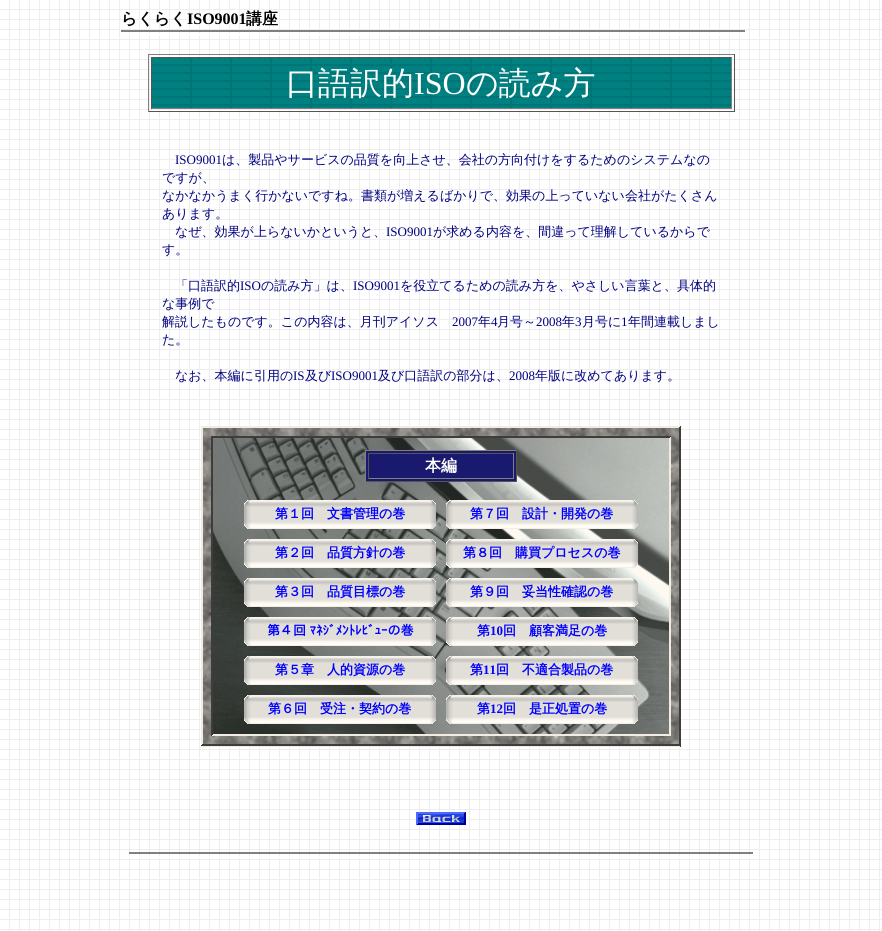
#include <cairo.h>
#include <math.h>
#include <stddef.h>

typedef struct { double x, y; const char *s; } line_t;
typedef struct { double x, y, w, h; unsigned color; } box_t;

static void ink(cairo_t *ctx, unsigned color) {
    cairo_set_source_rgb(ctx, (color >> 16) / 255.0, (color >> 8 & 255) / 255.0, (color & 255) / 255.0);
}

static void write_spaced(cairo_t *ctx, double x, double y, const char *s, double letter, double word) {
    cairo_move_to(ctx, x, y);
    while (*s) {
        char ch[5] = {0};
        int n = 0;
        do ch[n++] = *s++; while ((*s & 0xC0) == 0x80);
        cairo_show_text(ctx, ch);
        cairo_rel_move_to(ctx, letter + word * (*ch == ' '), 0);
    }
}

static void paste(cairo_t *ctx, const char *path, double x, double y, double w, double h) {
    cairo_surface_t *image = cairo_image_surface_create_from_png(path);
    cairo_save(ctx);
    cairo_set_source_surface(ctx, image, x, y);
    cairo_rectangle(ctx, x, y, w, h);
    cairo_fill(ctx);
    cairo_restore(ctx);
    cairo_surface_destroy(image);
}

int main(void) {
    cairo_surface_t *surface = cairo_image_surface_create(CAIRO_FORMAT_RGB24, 882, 931);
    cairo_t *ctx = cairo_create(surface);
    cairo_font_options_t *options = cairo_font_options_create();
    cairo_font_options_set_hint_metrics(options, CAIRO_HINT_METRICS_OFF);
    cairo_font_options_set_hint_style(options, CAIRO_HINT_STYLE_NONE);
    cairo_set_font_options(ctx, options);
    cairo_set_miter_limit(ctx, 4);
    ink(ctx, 0xFFFFFF);
    cairo_paint(ctx);
    paste(ctx, "media/1.png", 0, 0, 882, 931);
    cairo_select_font_face(ctx, "WenQuanYi Zen Hei", CAIRO_FONT_SLANT_NORMAL, CAIRO_FONT_WEIGHT_BOLD);
    cairo_set_font_size(ctx, 16);
    ink(ctx, 0x000000);
    cairo_move_to(ctx, 121, 24);
    cairo_show_text(ctx, "らくらく");
    cairo_select_font_face(ctx, "Liberation Serif", CAIRO_FONT_SLANT_NORMAL, CAIRO_FONT_WEIGHT_BOLD);
    cairo_move_to(ctx, 187, 24);
    cairo_show_text(ctx, "ISO9001");
    cairo_select_font_face(ctx, "WenQuanYi Zen Hei", CAIRO_FONT_SLANT_NORMAL, CAIRO_FONT_WEIGHT_BOLD);
    cairo_move_to(ctx, 246, 24);
    cairo_show_text(ctx, "講座");
    paste(ctx, "media/2.png", 121, 30, 624, 6);
    {
        static const box_t items[] = {
            {148, 54, 587, 1, 0x808080},
            {734, 54, 1, 58, 0x555555},
            {148, 111, 587, 1, 0x555555},
            {148, 54, 1, 58, 0x808080},
        };
        for (size_t i = 0; i < sizeof items / sizeof *items; i++) {
            ink(ctx, items[i].color);
            cairo_rectangle(ctx, items[i].x, items[i].y, items[i].w, items[i].h);
            cairo_fill(ctx);
        }
    }
    paste(ctx, "media/3.png", 152, 58, 579, 50);
    {
        static const box_t items[] = {
            {151, 57, 581, 1, 0x555555},
            {731, 57, 1, 52, 0x808080},
            {151, 108, 581, 1, 0x808080},
            {151, 57, 1, 52, 0x555555},
        };
        for (size_t i = 0; i < sizeof items / sizeof *items; i++) {
            ink(ctx, items[i].color);
            cairo_rectangle(ctx, items[i].x, items[i].y, items[i].w, items[i].h);
            cairo_fill(ctx);
        }
    }
    cairo_select_font_face(ctx, "WenQuanYi Zen Hei Medium", CAIRO_FONT_SLANT_NORMAL, CAIRO_FONT_WEIGHT_NORMAL);
    cairo_set_font_size(ctx, 32);
    ink(ctx, 0xFFFFFF);
    cairo_move_to(ctx, 286, 94);
    cairo_show_text(ctx, "口語訳的");
    cairo_select_font_face(ctx, "Liberation Serif", CAIRO_FONT_SLANT_NORMAL, CAIRO_FONT_WEIGHT_NORMAL);
    cairo_move_to(ctx, 414, 94);
    cairo_show_text(ctx, "ISO");
    cairo_select_font_face(ctx, "WenQuanYi Zen Hei Medium", CAIRO_FONT_SLANT_NORMAL, CAIRO_FONT_WEIGHT_NORMAL);
    cairo_move_to(ctx, 466, 94);
    cairo_show_text(ctx, "の読み方");
    cairo_select_font_face(ctx, "Liberation Serif", CAIRO_FONT_SLANT_NORMAL, CAIRO_FONT_WEIGHT_NORMAL);
    cairo_set_font_size(ctx, 13);
    ink(ctx, 0x000080);
    cairo_move_to(ctx, 175, 164);
    cairo_show_text(ctx, "ISO9001");
    cairo_select_font_face(ctx, "WenQuanYi Zen Hei Medium", CAIRO_FONT_SLANT_NORMAL, CAIRO_FONT_WEIGHT_NORMAL);
    {
        static const line_t items[] = {
            {222, 164, "は、製品やサービスの品質を向上させ、会社の方向付けをするためのシステムなの"},
            {162, 182, "ですが、"},
            {162, 200, "なかなかうまく行かないですね。書類が増えるばかりで、効果の上っていない会社がたくさん"},
            {162, 218, "あります。"},
            {175, 236, "なぜ、効果が上らないかというと、"},
        };
        for (size_t i = 0; i < sizeof items / sizeof *items; i++) {
            cairo_move_to(ctx, items[i].x, items[i].y);
            cairo_show_text(ctx, items[i].s);
        }
    }
    cairo_select_font_face(ctx, "Liberation Serif", CAIRO_FONT_SLANT_NORMAL, CAIRO_FONT_WEIGHT_NORMAL);
    cairo_move_to(ctx, 386, 236);
    cairo_show_text(ctx, "ISO9001");
    cairo_select_font_face(ctx, "WenQuanYi Zen Hei Medium", CAIRO_FONT_SLANT_NORMAL, CAIRO_FONT_WEIGHT_NORMAL);
    {
        static const line_t items[] = {
            {433, 236, "が求める内容を、間違って理解しているからで"},
            {162, 254, "す。"},
            {175, 290, "「口語訳的"},
        };
        for (size_t i = 0; i < sizeof items / sizeof *items; i++) {
            cairo_move_to(ctx, items[i].x, items[i].y);
            cairo_show_text(ctx, items[i].s);
        }
    }
    cairo_select_font_face(ctx, "Liberation Serif", CAIRO_FONT_SLANT_NORMAL, CAIRO_FONT_WEIGHT_NORMAL);
    cairo_move_to(ctx, 240, 290);
    cairo_show_text(ctx, "ISO");
    cairo_select_font_face(ctx, "WenQuanYi Zen Hei Medium", CAIRO_FONT_SLANT_NORMAL, CAIRO_FONT_WEIGHT_NORMAL);
    cairo_move_to(ctx, 261, 290);
    cairo_show_text(ctx, "の読み方」は、");
    cairo_select_font_face(ctx, "Liberation Serif", CAIRO_FONT_SLANT_NORMAL, CAIRO_FONT_WEIGHT_NORMAL);
    cairo_move_to(ctx, 353, 290);
    cairo_show_text(ctx, "ISO9001");
    cairo_select_font_face(ctx, "WenQuanYi Zen Hei Medium", CAIRO_FONT_SLANT_NORMAL, CAIRO_FONT_WEIGHT_NORMAL);
    {
        static const line_t items[] = {
            {400, 290, "を役立てるための読み方を、やさしい言葉と、具体的"},
            {162, 308, "な事例で"},
            {162, 326, "解説したものです。この内容は、月刊アイソス"},
        };
        for (size_t i = 0; i < sizeof items / sizeof *items; i++) {
            cairo_move_to(ctx, items[i].x, items[i].y);
            cairo_show_text(ctx, items[i].s);
        }
    }
    cairo_select_font_face(ctx, "Liberation Serif", CAIRO_FONT_SLANT_NORMAL, CAIRO_FONT_WEIGHT_NORMAL);
    cairo_move_to(ctx, 452, 326);
    cairo_show_text(ctx, "2007");
    cairo_select_font_face(ctx, "WenQuanYi Zen Hei Medium", CAIRO_FONT_SLANT_NORMAL, CAIRO_FONT_WEIGHT_NORMAL);
    cairo_move_to(ctx, 478, 326);
    cairo_show_text(ctx, "年");
    cairo_select_font_face(ctx, "Liberation Serif", CAIRO_FONT_SLANT_NORMAL, CAIRO_FONT_WEIGHT_NORMAL);
    cairo_move_to(ctx, 491, 326);
    cairo_show_text(ctx, "4");
    cairo_select_font_face(ctx, "WenQuanYi Zen Hei Medium", CAIRO_FONT_SLANT_NORMAL, CAIRO_FONT_WEIGHT_NORMAL);
    cairo_move_to(ctx, 497, 326);
    cairo_show_text(ctx, "月号～");
    cairo_select_font_face(ctx, "Liberation Serif", CAIRO_FONT_SLANT_NORMAL, CAIRO_FONT_WEIGHT_NORMAL);
    cairo_move_to(ctx, 536, 326);
    cairo_show_text(ctx, "2008");
    cairo_select_font_face(ctx, "WenQuanYi Zen Hei Medium", CAIRO_FONT_SLANT_NORMAL, CAIRO_FONT_WEIGHT_NORMAL);
    cairo_move_to(ctx, 562, 326);
    cairo_show_text(ctx, "年");
    cairo_select_font_face(ctx, "Liberation Serif", CAIRO_FONT_SLANT_NORMAL, CAIRO_FONT_WEIGHT_NORMAL);
    cairo_move_to(ctx, 575, 326);
    cairo_show_text(ctx, "3");
    cairo_select_font_face(ctx, "WenQuanYi Zen Hei Medium", CAIRO_FONT_SLANT_NORMAL, CAIRO_FONT_WEIGHT_NORMAL);
    cairo_move_to(ctx, 582, 326);
    cairo_show_text(ctx, "月号に");
    cairo_select_font_face(ctx, "Liberation Serif", CAIRO_FONT_SLANT_NORMAL, CAIRO_FONT_WEIGHT_NORMAL);
    cairo_move_to(ctx, 621, 326);
    cairo_show_text(ctx, "1");
    cairo_select_font_face(ctx, "WenQuanYi Zen Hei Medium", CAIRO_FONT_SLANT_NORMAL, CAIRO_FONT_WEIGHT_NORMAL);
    {
        static const line_t items[] = {
            {628, 326, "年間連載しまし"},
            {162, 344, "た。"},
            {175, 380, "なお、本編に引用の"},
        };
        for (size_t i = 0; i < sizeof items / sizeof *items; i++) {
            cairo_move_to(ctx, items[i].x, items[i].y);
            cairo_show_text(ctx, items[i].s);
        }
    }
    cairo_select_font_face(ctx, "Liberation Serif", CAIRO_FONT_SLANT_NORMAL, CAIRO_FONT_WEIGHT_NORMAL);
    cairo_move_to(ctx, 293, 380);
    cairo_show_text(ctx, "IS");
    cairo_select_font_face(ctx, "WenQuanYi Zen Hei Medium", CAIRO_FONT_SLANT_NORMAL, CAIRO_FONT_WEIGHT_NORMAL);
    cairo_move_to(ctx, 305, 380);
    cairo_show_text(ctx, "及び");
    cairo_select_font_face(ctx, "Liberation Serif", CAIRO_FONT_SLANT_NORMAL, CAIRO_FONT_WEIGHT_NORMAL);
    cairo_move_to(ctx, 331, 380);
    cairo_show_text(ctx, "ISO9001");
    cairo_select_font_face(ctx, "WenQuanYi Zen Hei Medium", CAIRO_FONT_SLANT_NORMAL, CAIRO_FONT_WEIGHT_NORMAL);
    cairo_move_to(ctx, 378, 380);
    cairo_show_text(ctx, "及び口語訳の部分は、");
    cairo_select_font_face(ctx, "Liberation Serif", CAIRO_FONT_SLANT_NORMAL, CAIRO_FONT_WEIGHT_NORMAL);
    cairo_move_to(ctx, 509, 380);
    cairo_show_text(ctx, "2008");
    cairo_select_font_face(ctx, "WenQuanYi Zen Hei Medium", CAIRO_FONT_SLANT_NORMAL, CAIRO_FONT_WEIGHT_NORMAL);
    cairo_move_to(ctx, 535, 380);
    cairo_show_text(ctx, "年版に改めてあります。");
    paste(ctx, "media/4.png", 201, 426, 480, 321);
    {
        static const box_t items[] = {
            {366, 451, 150, 30, 0x191970},
            {365, 450, 152, 1, 0x808080},
            {516, 450, 1, 32, 0x555555},
            {365, 481, 152, 1, 0x555555},
            {365, 450, 1, 32, 0x808080},
            {368, 453, 146, 1, 0x555555},
            {513, 453, 1, 26, 0x808080},
            {368, 478, 146, 1, 0x808080},
            {368, 453, 1, 26, 0x555555},
        };
        for (size_t i = 0; i < sizeof items / sizeof *items; i++) {
            ink(ctx, items[i].color);
            cairo_rectangle(ctx, items[i].x, items[i].y, items[i].w, items[i].h);
            cairo_fill(ctx);
        }
    }
    cairo_select_font_face(ctx, "WenQuanYi Zen Hei", CAIRO_FONT_SLANT_NORMAL, CAIRO_FONT_WEIGHT_BOLD);
    cairo_set_font_size(ctx, 16);
    ink(ctx, 0xFFFFFF);
    cairo_move_to(ctx, 425, 471);
    cairo_show_text(ctx, "本編");
    paste(ctx, "media/5.png", 244, 500, 15, 29);
    paste(ctx, "media/6.png", 259, 500, 162, 29);
    cairo_set_font_size(ctx, 13);
    ink(ctx, 0x0000FF);
    cairo_move_to(ctx, 275, 518);
    cairo_show_text(ctx, "第１回　文書管理の巻");
    paste(ctx, "media/7.png", 421, 500, 15, 29);
    paste(ctx, "media/8.png", 446, 500, 15, 29);
    paste(ctx, "media/6.png", 461, 500, 162, 29);
    cairo_move_to(ctx, 470, 518);
    cairo_show_text(ctx, "第７回　設計・開発の巻");
    paste(ctx, "media/9.png", 623, 500, 15, 29);
    paste(ctx, "media/10.png", 244, 539, 15, 29);
    paste(ctx, "media/6.png", 259, 539, 162, 29);
    cairo_move_to(ctx, 275, 557);
    cairo_show_text(ctx, "第２回　品質方針の巻");
    paste(ctx, "media/11.png", 421, 539, 15, 29);
    paste(ctx, "media/12.png", 446, 539, 15, 29);
    paste(ctx, "media/6.png", 461, 539, 162, 29);
    cairo_move_to(ctx, 463, 557);
    cairo_show_text(ctx, "第８回　購買プロセスの巻");
    paste(ctx, "media/13.png", 623, 539, 15, 29);
    paste(ctx, "media/14.png", 244, 578, 15, 29);
    paste(ctx, "media/6.png", 259, 578, 162, 29);
    cairo_move_to(ctx, 275, 596);
    cairo_show_text(ctx, "第３回　品質目標の巻");
    paste(ctx, "media/15.png", 421, 578, 15, 29);
    paste(ctx, "media/16.png", 446, 578, 15, 29);
    paste(ctx, "media/6.png", 461, 578, 162, 29);
    cairo_move_to(ctx, 470, 596);
    cairo_show_text(ctx, "第９回　妥当性確認の巻");
    paste(ctx, "media/17.png", 623, 578, 15, 29);
    paste(ctx, "media/18.png", 244, 617, 15, 29);
    paste(ctx, "media/6.png", 259, 617, 162, 29);
    cairo_select_font_face(ctx, "IPAGothic", CAIRO_FONT_SLANT_NORMAL, CAIRO_FONT_WEIGHT_BOLD);
    write_spaced(ctx, 267, 635, "第４回 ﾏﾈｼﾞﾒﾝﾄﾚﾋﾞｭｰの巻", 0, -3);
    paste(ctx, "media/19.png", 421, 617, 15, 29);
    paste(ctx, "media/20.png", 446, 617, 15, 29);
    paste(ctx, "media/6.png", 461, 617, 162, 29);
    cairo_select_font_face(ctx, "WenQuanYi Zen Hei", CAIRO_FONT_SLANT_NORMAL, CAIRO_FONT_WEIGHT_BOLD);
    cairo_move_to(ctx, 477, 635);
    cairo_show_text(ctx, "第");
    cairo_select_font_face(ctx, "Liberation Serif", CAIRO_FONT_SLANT_NORMAL, CAIRO_FONT_WEIGHT_BOLD);
    cairo_move_to(ctx, 490, 635);
    cairo_show_text(ctx, "10");
    cairo_select_font_face(ctx, "WenQuanYi Zen Hei", CAIRO_FONT_SLANT_NORMAL, CAIRO_FONT_WEIGHT_BOLD);
    cairo_move_to(ctx, 503, 635);
    cairo_show_text(ctx, "回　顧客満足の巻");
    paste(ctx, "media/21.png", 623, 617, 15, 29);
    paste(ctx, "media/22.png", 244, 656, 15, 29);
    paste(ctx, "media/6.png", 259, 656, 162, 29);
    cairo_move_to(ctx, 275, 674);
    cairo_show_text(ctx, "第５章　人的資源の巻");
    paste(ctx, "media/23.png", 421, 656, 15, 29);
    paste(ctx, "media/24.png", 446, 656, 15, 29);
    paste(ctx, "media/6.png", 461, 656, 162, 29);
    cairo_move_to(ctx, 470, 674);
    cairo_show_text(ctx, "第");
    cairo_select_font_face(ctx, "Liberation Serif", CAIRO_FONT_SLANT_NORMAL, CAIRO_FONT_WEIGHT_BOLD);
    cairo_move_to(ctx, 483, 674);
    cairo_show_text(ctx, "11");
    cairo_select_font_face(ctx, "WenQuanYi Zen Hei", CAIRO_FONT_SLANT_NORMAL, CAIRO_FONT_WEIGHT_BOLD);
    cairo_move_to(ctx, 496, 674);
    cairo_show_text(ctx, "回　不適合製品の巻");
    paste(ctx, "media/25.png", 623, 656, 15, 29);
    paste(ctx, "media/26.png", 244, 695, 15, 29);
    paste(ctx, "media/6.png", 259, 695, 162, 29);
    cairo_move_to(ctx, 268, 713);
    cairo_show_text(ctx, "第６回　受注・契約の巻");
    paste(ctx, "media/27.png", 421, 695, 15, 29);
    paste(ctx, "media/28.png", 446, 695, 15, 29);
    paste(ctx, "media/6.png", 461, 695, 162, 29);
    cairo_move_to(ctx, 477, 713);
    cairo_show_text(ctx, "第");
    cairo_select_font_face(ctx, "Liberation Serif", CAIRO_FONT_SLANT_NORMAL, CAIRO_FONT_WEIGHT_BOLD);
    cairo_move_to(ctx, 490, 713);
    cairo_show_text(ctx, "12");
    cairo_select_font_face(ctx, "WenQuanYi Zen Hei", CAIRO_FONT_SLANT_NORMAL, CAIRO_FONT_WEIGHT_BOLD);
    cairo_move_to(ctx, 503, 713);
    cairo_show_text(ctx, "回　是正処置の巻");
    paste(ctx, "media/29.png", 623, 695, 15, 29);
    paste(ctx, "media/30.png", 416, 812, 50, 13);
    paste(ctx, "media/31.png", 129, 852, 624, 6);
    cairo_surface_write_to_png(surface, "image.png");
    cairo_font_options_destroy(options);
    cairo_destroy(ctx);
    cairo_surface_destroy(surface);
    return 0;
}
